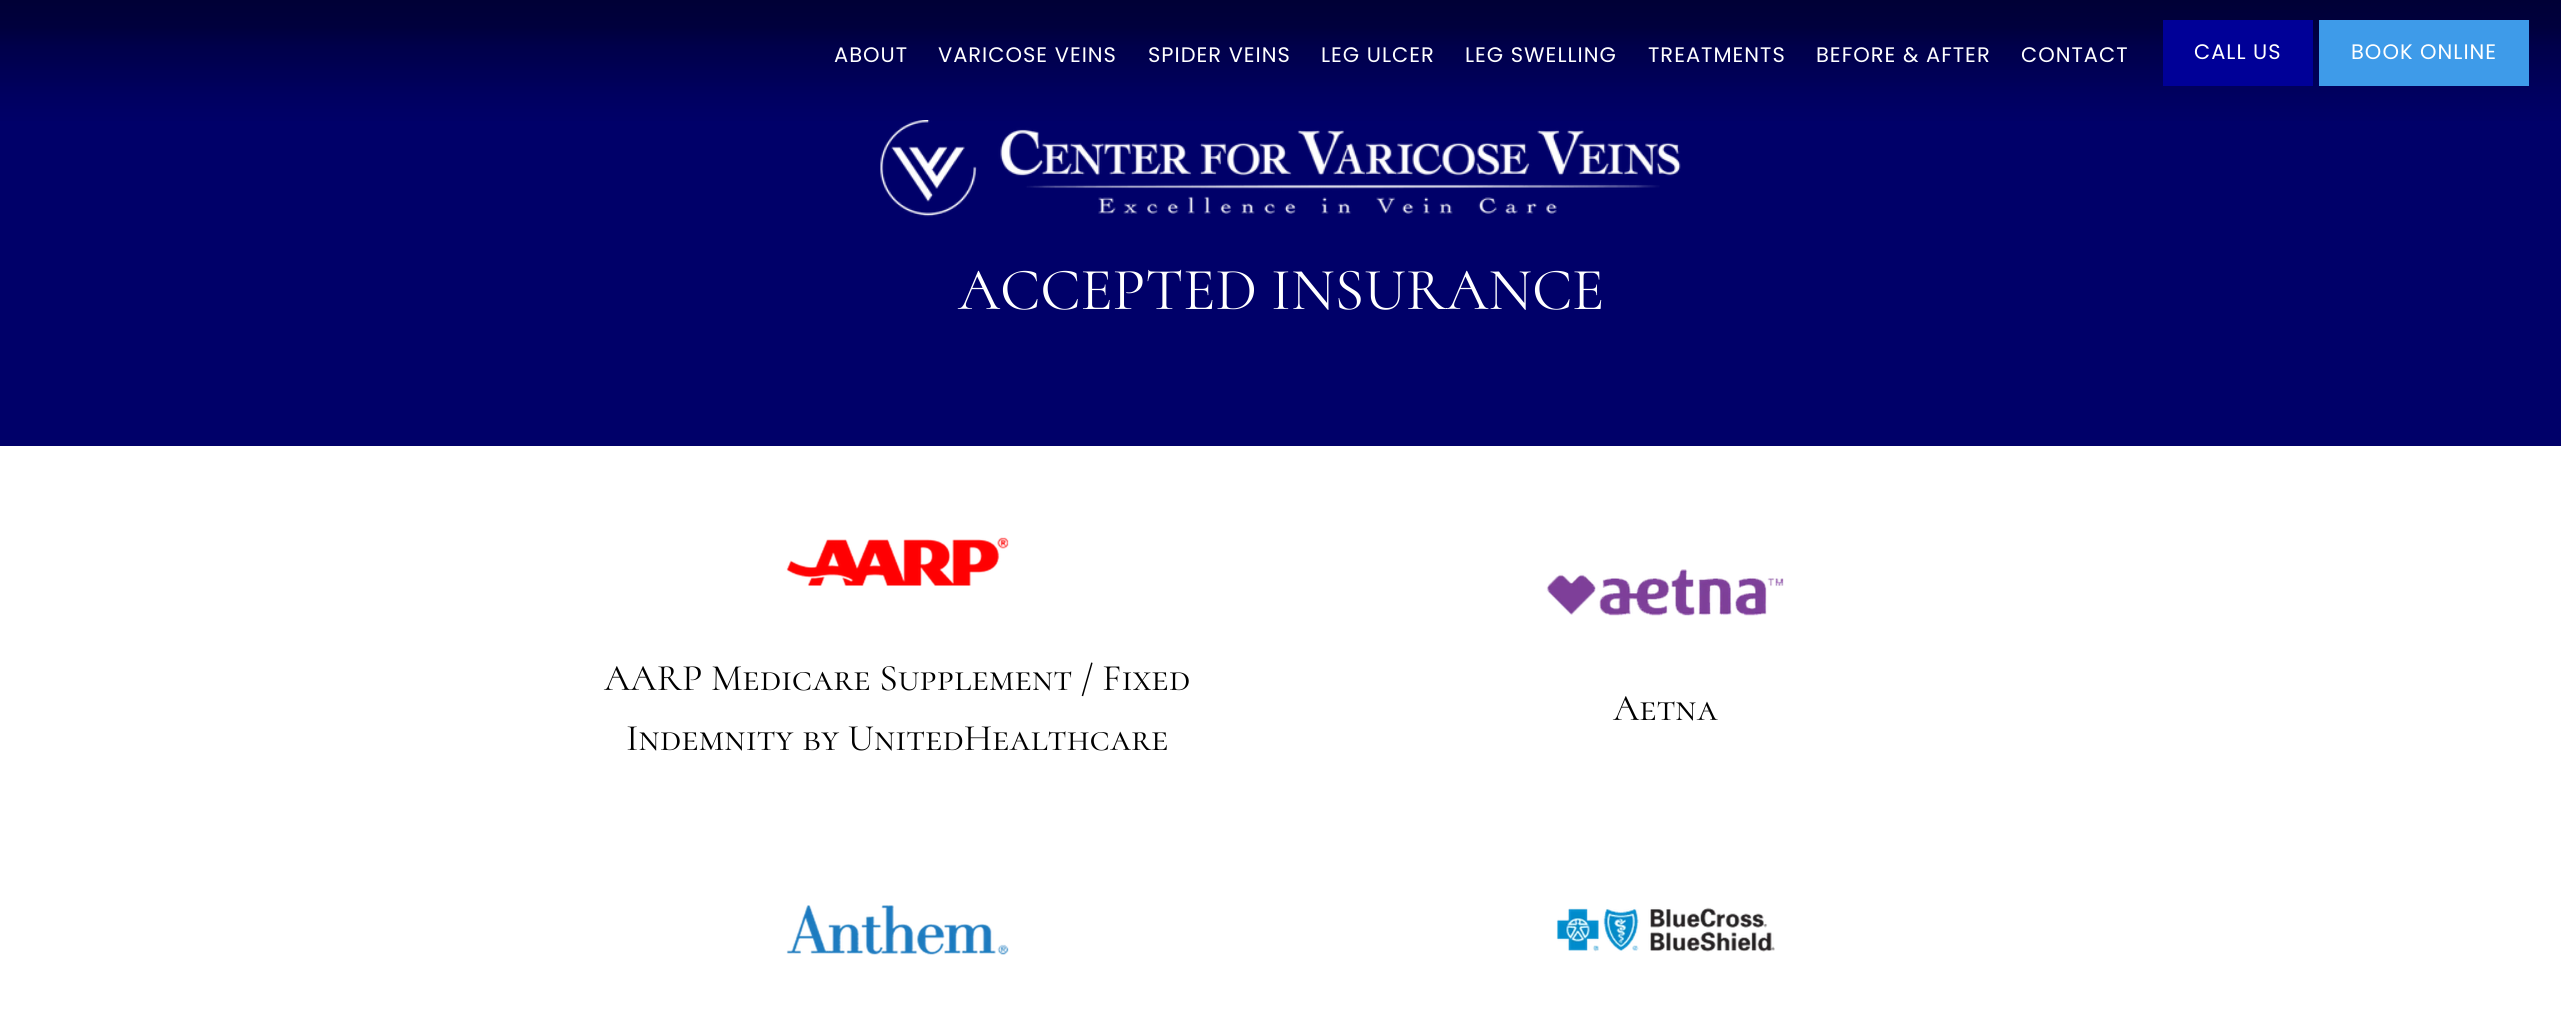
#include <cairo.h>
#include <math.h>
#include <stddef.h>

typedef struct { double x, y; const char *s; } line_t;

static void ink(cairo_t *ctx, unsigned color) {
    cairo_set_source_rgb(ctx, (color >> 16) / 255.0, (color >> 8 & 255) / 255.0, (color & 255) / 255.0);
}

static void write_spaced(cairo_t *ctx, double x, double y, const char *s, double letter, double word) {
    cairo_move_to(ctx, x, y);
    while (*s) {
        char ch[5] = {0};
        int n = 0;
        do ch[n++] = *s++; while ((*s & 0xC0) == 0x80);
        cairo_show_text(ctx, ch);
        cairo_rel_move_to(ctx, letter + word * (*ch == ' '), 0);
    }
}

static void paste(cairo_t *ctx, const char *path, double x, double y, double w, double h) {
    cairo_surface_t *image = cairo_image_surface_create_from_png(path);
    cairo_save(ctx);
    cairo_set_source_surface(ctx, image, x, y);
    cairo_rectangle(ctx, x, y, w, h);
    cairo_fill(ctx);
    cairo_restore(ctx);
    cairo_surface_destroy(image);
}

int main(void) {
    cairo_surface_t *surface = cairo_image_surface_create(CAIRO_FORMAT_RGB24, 2561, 1011);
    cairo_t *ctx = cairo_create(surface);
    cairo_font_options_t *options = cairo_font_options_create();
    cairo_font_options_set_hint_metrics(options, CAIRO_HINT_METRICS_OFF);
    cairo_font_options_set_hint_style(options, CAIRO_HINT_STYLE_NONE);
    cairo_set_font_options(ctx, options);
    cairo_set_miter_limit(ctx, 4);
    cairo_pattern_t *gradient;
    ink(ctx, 0xFFFFFF);
    cairo_paint(ctx);
    ink(ctx, 0x000069);
    cairo_rectangle(ctx, 0, 0, 2561, 446);
    cairo_fill(ctx);
    paste(ctx, "media/1.png", 880, 120, 801, 97);
    gradient = cairo_pattern_create_linear(1281, 0, 1281, 150);
    cairo_pattern_add_color_stop_rgba(gradient, 0, 0, 0, 0, 0.49);
    cairo_pattern_add_color_stop_rgba(gradient, 0.09, 0, 0, 0, 0.45);
    cairo_pattern_add_color_stop_rgba(gradient, 0.18, 0, 0, 0, 0.42);
    cairo_pattern_add_color_stop_rgba(gradient, 0.25, 0, 0, 0, 0.35);
    cairo_pattern_add_color_stop_rgba(gradient, 0.31, 0, 0, 0, 0.29);
    cairo_pattern_add_color_stop_rgba(gradient, 0.37, 0, 0, 0, 0.26);
    cairo_pattern_add_color_stop_rgba(gradient, 0.42, 0, 0, 0, 0.23);
    cairo_pattern_add_color_stop_rgba(gradient, 0.47, 0, 0, 0, 0.19);
    cairo_pattern_add_color_stop_rgba(gradient, 0.53, 0, 0, 0, 0.16);
    cairo_pattern_add_color_stop_rgba(gradient, 0.58, 0, 0, 0, 0.12);
    cairo_pattern_add_color_stop_rgba(gradient, 0.63, 0, 0, 0, 0.09);
    cairo_pattern_add_color_stop_rgba(gradient, 0.69, 0, 0, 0, 0.06);
    cairo_pattern_add_color_stop_rgba(gradient, 0.75, 0, 0, 0, 0.03);
    cairo_pattern_add_color_stop_rgba(gradient, 0.82, 0, 0, 0, 0.02);
    cairo_pattern_add_color_stop_rgba(gradient, 0.91, 0, 0, 0, 0.01);
    cairo_pattern_add_color_stop_rgba(gradient, 1, 0, 0, 0, 0);
    cairo_set_source(ctx, gradient);
    cairo_pattern_destroy(gradient);
    cairo_rectangle(ctx, 0, 0, 2561, 121);
    cairo_fill(ctx);
    cairo_select_font_face(ctx, "Poppins", CAIRO_FONT_SLANT_NORMAL, CAIRO_FONT_WEIGHT_NORMAL);
    cairo_set_font_size(ctx, 21);
    ink(ctx, 0xFFFFFF);
    {
        static const line_t items[] = {
            {834, 62, "ABOUT"},
            {938, 62, "VARICOSE VEINS"},
            {1148, 62, "SPIDER VEINS"},
            {1321, 62, "LEG ULCER"},
            {1465, 62, "LEG SWELLING"},
            {1648, 62, "TREATMENTS"},
            {1816, 62, "BEFORE & AFTER"},
            {2021, 62, "CONTACT"},
        };
        for (size_t i = 0; i < sizeof items / sizeof *items; i++) {
            write_spaced(ctx, items[i].x, items[i].y, items[i].s, 1, 0);
        }
    }
    ink(ctx, 0x000097);
    cairo_rectangle(ctx, 2163, 20, 150, 66);
    cairo_fill(ctx);
    ink(ctx, 0xFFFFFF);
    write_spaced(ctx, 2194, 59, "CALL US", 1, 0);
    ink(ctx, 0x3E9BE9);
    cairo_rectangle(ctx, 2319, 20, 210, 66);
    cairo_fill(ctx);
    ink(ctx, 0xFFFFFF);
    write_spaced(ctx, 2351, 59, "BOOK ONLINE", 1, 0);
    cairo_select_font_face(ctx, "Cormorant SC", CAIRO_FONT_SLANT_NORMAL, CAIRO_FONT_WEIGHT_NORMAL);
    cairo_set_font_size(ctx, 60);
    cairo_move_to(ctx, 958, 309);
    cairo_show_text(ctx, "ACCEPTED INSURANCE");
    paste(ctx, "media/2.png", 786, 537, 223, 49);
    cairo_set_font_size(ctx, 37.5);
    ink(ctx, 0x000000);
    cairo_move_to(ctx, 604, 690);
    cairo_show_text(ctx, "AARP Medicare Supplement / Fixed");
    cairo_move_to(ctx, 626, 750);
    cairo_show_text(ctx, "Indemnity by UnitedHealthcare");
    paste(ctx, "media/3.png", 1546, 569, 238, 47);
    cairo_move_to(ctx, 1613, 720);
    cairo_show_text(ctx, "Aetna");
    paste(ctx, "media/4.png", 786, 905, 223, 50);
    paste(ctx, "media/5.png", 1556, 907, 219, 45);
    cairo_surface_write_to_png(surface, "image.png");
    cairo_font_options_destroy(options);
    cairo_destroy(ctx);
    cairo_surface_destroy(surface);
    return 0;
}
